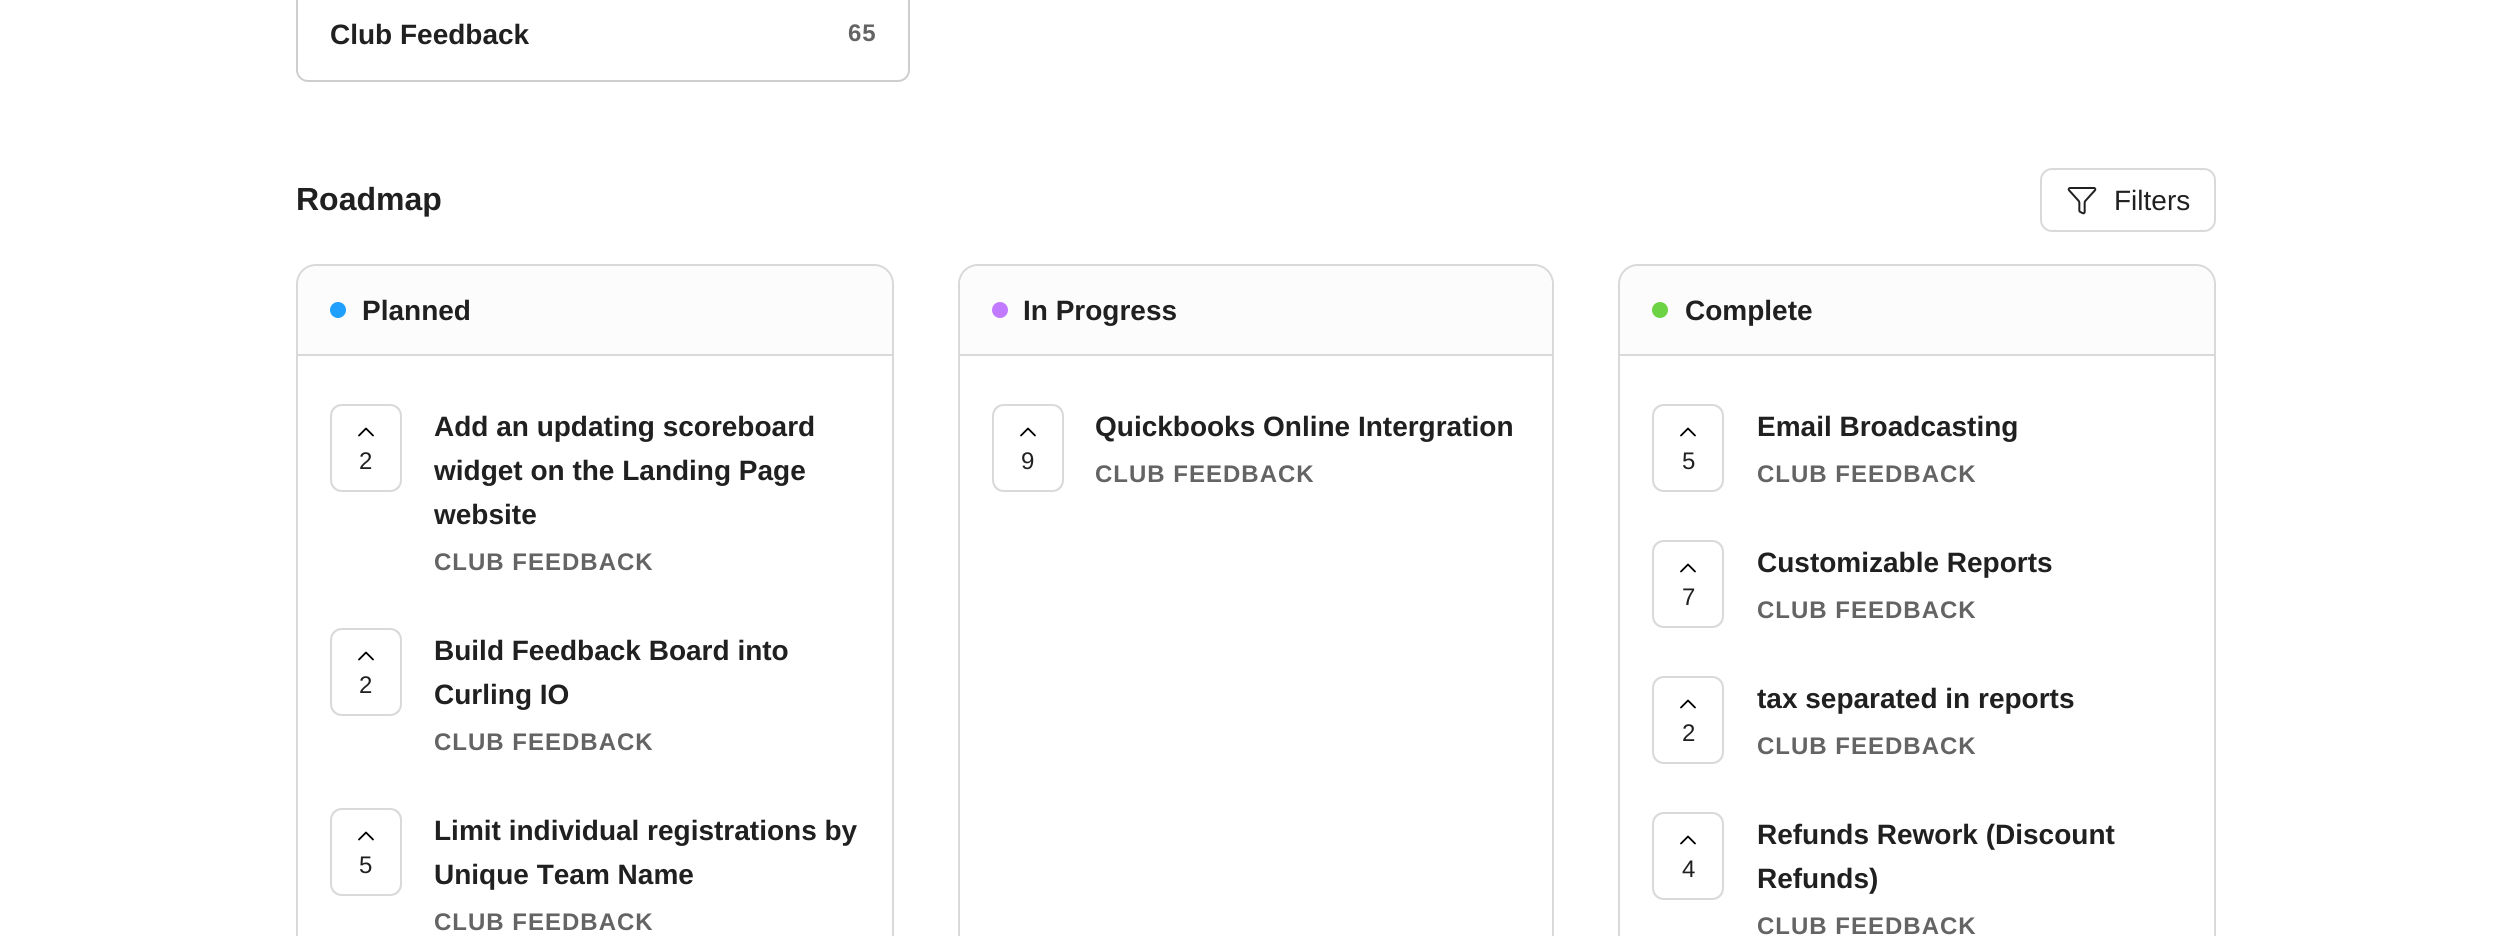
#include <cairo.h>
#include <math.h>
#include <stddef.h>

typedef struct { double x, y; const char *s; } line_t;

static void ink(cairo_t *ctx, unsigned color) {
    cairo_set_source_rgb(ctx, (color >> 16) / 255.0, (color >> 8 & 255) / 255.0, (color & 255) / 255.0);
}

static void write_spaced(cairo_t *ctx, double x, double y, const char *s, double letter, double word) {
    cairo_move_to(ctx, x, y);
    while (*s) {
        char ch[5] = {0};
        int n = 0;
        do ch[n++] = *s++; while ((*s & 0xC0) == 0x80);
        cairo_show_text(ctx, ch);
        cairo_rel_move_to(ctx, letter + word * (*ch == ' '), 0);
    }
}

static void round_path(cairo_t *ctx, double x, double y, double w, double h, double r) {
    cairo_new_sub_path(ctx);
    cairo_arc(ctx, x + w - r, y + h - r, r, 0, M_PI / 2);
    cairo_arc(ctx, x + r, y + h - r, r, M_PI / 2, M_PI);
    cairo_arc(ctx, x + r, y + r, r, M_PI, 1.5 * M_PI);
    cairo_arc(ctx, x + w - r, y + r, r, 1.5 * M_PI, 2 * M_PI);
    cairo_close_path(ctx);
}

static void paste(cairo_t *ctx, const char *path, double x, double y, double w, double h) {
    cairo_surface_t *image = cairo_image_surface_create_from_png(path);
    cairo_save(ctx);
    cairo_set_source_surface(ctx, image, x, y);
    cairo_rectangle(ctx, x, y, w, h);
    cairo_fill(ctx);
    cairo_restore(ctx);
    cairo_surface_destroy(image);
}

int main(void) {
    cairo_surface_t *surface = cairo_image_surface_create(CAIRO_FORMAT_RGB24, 2511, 936);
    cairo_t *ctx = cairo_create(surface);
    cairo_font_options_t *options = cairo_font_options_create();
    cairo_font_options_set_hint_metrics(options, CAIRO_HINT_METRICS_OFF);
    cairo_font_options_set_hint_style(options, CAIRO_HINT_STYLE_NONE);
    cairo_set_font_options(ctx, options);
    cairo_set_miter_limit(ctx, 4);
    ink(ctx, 0xFFFFFF);
    cairo_paint(ctx);
    round_path(ctx, 297, -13, 612, 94, 11);
    ink(ctx, 0xCECECE);
    cairo_stroke(ctx);
    cairo_select_font_face(ctx, "Liberation Sans", CAIRO_FONT_SLANT_NORMAL, CAIRO_FONT_WEIGHT_BOLD);
    cairo_set_font_size(ctx, 28);
    ink(ctx, 0x202020);
    cairo_move_to(ctx, 330, 44);
    cairo_show_text(ctx, "Club Feedback");
    cairo_set_font_size(ctx, 24);
    ink(ctx, 0x646464);
    write_spaced(ctx, 848, 41, "65", 1, 0);
    cairo_set_font_size(ctx, 32);
    ink(ctx, 0x202020);
    cairo_move_to(ctx, 296, 210);
    cairo_show_text(ctx, "Roadmap");
    round_path(ctx, 2041, 169, 174, 62, 11);
    ink(ctx, 0xD9D9D9);
    cairo_stroke(ctx);
    paste(ctx, "media/1.png", 2067, 187, 30, 28);
    cairo_select_font_face(ctx, "Liberation Sans", CAIRO_FONT_SLANT_NORMAL, CAIRO_FONT_WEIGHT_NORMAL);
    cairo_set_font_size(ctx, 28);
    ink(ctx, 0x202020);
    cairo_move_to(ctx, 2114, 210);
    cairo_show_text(ctx, "Filters");
    round_path(ctx, 297, 265, 596, 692, 19);
    ink(ctx, 0xD9D9D9);
    cairo_stroke(ctx);
    cairo_save(ctx);
    round_path(ctx, 298, 266, 594, 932, 18);
    cairo_clip(ctx);
    ink(ctx, 0xFCFCFC);
    cairo_new_path(ctx);
    cairo_move_to(ctx, 318, 266);
    cairo_line_to(ctx, 872, 266);
    cairo_curve_to(ctx, 883, 266, 892, 275, 892, 286);
    cairo_line_to(ctx, 892, 356);
    cairo_line_to(ctx, 298, 356);
    cairo_line_to(ctx, 298, 286);
    cairo_curve_to(ctx, 298, 275, 307, 266, 318, 266);
    cairo_close_path(ctx);
    cairo_fill(ctx);
    cairo_restore(ctx);
    cairo_rectangle(ctx, 298, 354, 594, 2);
    cairo_fill(ctx);
    ink(ctx, 0x1FA0FF);
    cairo_arc(ctx, 338, 310, 8, 0, 2 * M_PI);
    cairo_fill(ctx);
    cairo_select_font_face(ctx, "Liberation Sans", CAIRO_FONT_SLANT_NORMAL, CAIRO_FONT_WEIGHT_BOLD);
    ink(ctx, 0x202020);
    cairo_move_to(ctx, 362, 320);
    cairo_show_text(ctx, "Planned");
    ink(ctx, 0xD9D9D9);
    cairo_new_path(ctx);
    cairo_move_to(ctx, 342, 404);
    cairo_line_to(ctx, 390, 404);
    cairo_curve_to(ctx, 397, 404, 402, 409, 402, 416);
    cairo_line_to(ctx, 402, 480);
    cairo_curve_to(ctx, 402, 487, 397, 492, 390, 492);
    cairo_line_to(ctx, 342, 492);
    cairo_curve_to(ctx, 335, 492, 330, 487, 330, 480);
    cairo_line_to(ctx, 330, 416);
    cairo_curve_to(ctx, 330, 409, 335, 404, 342, 404);
    cairo_close_path(ctx);
    cairo_fill(ctx);
    ink(ctx, 0xFFFFFF);
    round_path(ctx, 332, 406, 68, 84, 10);
    cairo_fill(ctx);
    cairo_new_path(ctx);
    cairo_move_to(ctx, 373, 435.5);
    cairo_line_to(ctx, 366, 428.5);
    cairo_line_to(ctx, 359, 435.5);
    ink(ctx, 0x000000);
    cairo_set_line_width(ctx, 1.8);
    cairo_set_line_cap(ctx, CAIRO_LINE_CAP_ROUND);
    cairo_set_line_join(ctx, CAIRO_LINE_JOIN_ROUND);
    cairo_stroke(ctx);
    cairo_select_font_face(ctx, "Liberation Sans", CAIRO_FONT_SLANT_NORMAL, CAIRO_FONT_WEIGHT_NORMAL);
    cairo_set_font_size(ctx, 24);
    ink(ctx, 0x202020);
    cairo_move_to(ctx, 359, 469);
    cairo_show_text(ctx, "2");
    cairo_select_font_face(ctx, "Liberation Sans", CAIRO_FONT_SLANT_NORMAL, CAIRO_FONT_WEIGHT_BOLD);
    cairo_set_font_size(ctx, 28);
    {
        static const line_t items[] = {
            {434, 436, "Add an updating scoreboard"},
            {434, 480, "widget on the Landing Page"},
            {434, 524, "website"},
        };
        for (size_t i = 0; i < sizeof items / sizeof *items; i++) {
            cairo_move_to(ctx, items[i].x, items[i].y);
            cairo_show_text(ctx, items[i].s);
        }
    }
    cairo_set_font_size(ctx, 24);
    ink(ctx, 0x646464);
    write_spaced(ctx, 434, 570, "CLUB FEEDBACK", 1, 0);
    ink(ctx, 0xD9D9D9);
    cairo_new_path(ctx);
    cairo_move_to(ctx, 342, 628);
    cairo_line_to(ctx, 390, 628);
    cairo_curve_to(ctx, 397, 628, 402, 633, 402, 640);
    cairo_line_to(ctx, 402, 704);
    cairo_curve_to(ctx, 402, 711, 397, 716, 390, 716);
    cairo_line_to(ctx, 342, 716);
    cairo_curve_to(ctx, 335, 716, 330, 711, 330, 704);
    cairo_line_to(ctx, 330, 640);
    cairo_curve_to(ctx, 330, 633, 335, 628, 342, 628);
    cairo_close_path(ctx);
    cairo_fill(ctx);
    ink(ctx, 0xFFFFFF);
    round_path(ctx, 332, 630, 68, 84, 10);
    cairo_fill(ctx);
    cairo_new_path(ctx);
    cairo_move_to(ctx, 373, 659.5);
    cairo_line_to(ctx, 366, 652.5);
    cairo_line_to(ctx, 359, 659.5);
    ink(ctx, 0x000000);
    cairo_stroke(ctx);
    cairo_select_font_face(ctx, "Liberation Sans", CAIRO_FONT_SLANT_NORMAL, CAIRO_FONT_WEIGHT_NORMAL);
    ink(ctx, 0x202020);
    cairo_move_to(ctx, 359, 693);
    cairo_show_text(ctx, "2");
    cairo_select_font_face(ctx, "Liberation Sans", CAIRO_FONT_SLANT_NORMAL, CAIRO_FONT_WEIGHT_BOLD);
    cairo_set_font_size(ctx, 28);
    cairo_move_to(ctx, 434, 660);
    cairo_show_text(ctx, "Build Feedback Board into");
    cairo_move_to(ctx, 434, 704);
    cairo_show_text(ctx, "Curling IO");
    cairo_set_font_size(ctx, 24);
    ink(ctx, 0x646464);
    write_spaced(ctx, 434, 750, "CLUB FEEDBACK", 1, 0);
    ink(ctx, 0xD9D9D9);
    cairo_new_path(ctx);
    cairo_move_to(ctx, 342, 808);
    cairo_line_to(ctx, 390, 808);
    cairo_curve_to(ctx, 397, 808, 402, 813, 402, 820);
    cairo_line_to(ctx, 402, 884);
    cairo_curve_to(ctx, 402, 891, 397, 896, 390, 896);
    cairo_line_to(ctx, 342, 896);
    cairo_curve_to(ctx, 335, 896, 330, 891, 330, 884);
    cairo_line_to(ctx, 330, 820);
    cairo_curve_to(ctx, 330, 813, 335, 808, 342, 808);
    cairo_close_path(ctx);
    cairo_fill(ctx);
    ink(ctx, 0xFFFFFF);
    round_path(ctx, 332, 810, 68, 84, 10);
    cairo_fill(ctx);
    cairo_new_path(ctx);
    cairo_move_to(ctx, 373, 839.5);
    cairo_line_to(ctx, 366, 832.5);
    cairo_line_to(ctx, 359, 839.5);
    ink(ctx, 0x000000);
    cairo_stroke(ctx);
    cairo_select_font_face(ctx, "Liberation Sans", CAIRO_FONT_SLANT_NORMAL, CAIRO_FONT_WEIGHT_NORMAL);
    ink(ctx, 0x202020);
    cairo_move_to(ctx, 359, 873);
    cairo_show_text(ctx, "5");
    cairo_select_font_face(ctx, "Liberation Sans", CAIRO_FONT_SLANT_NORMAL, CAIRO_FONT_WEIGHT_BOLD);
    cairo_set_font_size(ctx, 28);
    cairo_move_to(ctx, 434, 840);
    cairo_show_text(ctx, "Limit individual registrations by");
    cairo_move_to(ctx, 434, 884);
    cairo_show_text(ctx, "Unique Team Name");
    cairo_set_font_size(ctx, 24);
    ink(ctx, 0x646464);
    write_spaced(ctx, 434, 930, "CLUB FEEDBACK", 1, 0);
    round_path(ctx, 959, 265, 594, 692, 19);
    ink(ctx, 0xD9D9D9);
    cairo_set_line_width(ctx, 2);
    cairo_set_line_cap(ctx, CAIRO_LINE_CAP_BUTT);
    cairo_set_line_join(ctx, CAIRO_LINE_JOIN_MITER);
    cairo_stroke(ctx);
    cairo_save(ctx);
    round_path(ctx, 960, 266, 592, 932, 18);
    cairo_clip(ctx);
    ink(ctx, 0xFCFCFC);
    cairo_new_path(ctx);
    cairo_move_to(ctx, 980, 266);
    cairo_line_to(ctx, 1532, 266);
    cairo_curve_to(ctx, 1543, 266, 1552, 275, 1552, 286);
    cairo_line_to(ctx, 1552, 356);
    cairo_line_to(ctx, 960, 356);
    cairo_line_to(ctx, 960, 286);
    cairo_curve_to(ctx, 960, 275, 969, 266, 980, 266);
    cairo_close_path(ctx);
    cairo_fill(ctx);
    cairo_restore(ctx);
    cairo_rectangle(ctx, 960, 354, 592, 2);
    cairo_fill(ctx);
    ink(ctx, 0xC17AFF);
    cairo_arc(ctx, 1000, 310, 8, 0, 2 * M_PI);
    cairo_fill(ctx);
    cairo_set_font_size(ctx, 28);
    ink(ctx, 0x202020);
    cairo_move_to(ctx, 1023, 320);
    cairo_show_text(ctx, "In Progress");
    ink(ctx, 0xD9D9D9);
    cairo_new_path(ctx);
    cairo_move_to(ctx, 1004, 404);
    cairo_line_to(ctx, 1052, 404);
    cairo_curve_to(ctx, 1059, 404, 1064, 409, 1064, 416);
    cairo_line_to(ctx, 1064, 480);
    cairo_curve_to(ctx, 1064, 487, 1059, 492, 1052, 492);
    cairo_line_to(ctx, 1004, 492);
    cairo_curve_to(ctx, 997, 492, 992, 487, 992, 480);
    cairo_line_to(ctx, 992, 416);
    cairo_curve_to(ctx, 992, 409, 997, 404, 1004, 404);
    cairo_close_path(ctx);
    cairo_fill(ctx);
    ink(ctx, 0xFFFFFF);
    round_path(ctx, 994, 406, 68, 84, 10);
    cairo_fill(ctx);
    cairo_new_path(ctx);
    cairo_move_to(ctx, 1035, 435.5);
    cairo_line_to(ctx, 1028, 428.5);
    cairo_line_to(ctx, 1021, 435.5);
    ink(ctx, 0x000000);
    cairo_set_line_width(ctx, 1.8);
    cairo_set_line_cap(ctx, CAIRO_LINE_CAP_ROUND);
    cairo_set_line_join(ctx, CAIRO_LINE_JOIN_ROUND);
    cairo_stroke(ctx);
    cairo_select_font_face(ctx, "Liberation Sans", CAIRO_FONT_SLANT_NORMAL, CAIRO_FONT_WEIGHT_NORMAL);
    cairo_set_font_size(ctx, 24);
    ink(ctx, 0x202020);
    cairo_move_to(ctx, 1021, 469);
    cairo_show_text(ctx, "9");
    cairo_select_font_face(ctx, "Liberation Sans", CAIRO_FONT_SLANT_NORMAL, CAIRO_FONT_WEIGHT_BOLD);
    cairo_set_font_size(ctx, 28);
    cairo_move_to(ctx, 1095, 436);
    cairo_show_text(ctx, "Quickbooks Online Intergration");
    cairo_set_font_size(ctx, 24);
    ink(ctx, 0x646464);
    write_spaced(ctx, 1095, 482, "CLUB FEEDBACK", 1, 0);
    round_path(ctx, 1619, 265, 596, 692, 19);
    ink(ctx, 0xD9D9D9);
    cairo_set_line_width(ctx, 2);
    cairo_set_line_cap(ctx, CAIRO_LINE_CAP_BUTT);
    cairo_set_line_join(ctx, CAIRO_LINE_JOIN_MITER);
    cairo_stroke(ctx);
    cairo_save(ctx);
    round_path(ctx, 1620, 266, 594, 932, 18);
    cairo_clip(ctx);
    ink(ctx, 0xFCFCFC);
    cairo_new_path(ctx);
    cairo_move_to(ctx, 1640, 266);
    cairo_line_to(ctx, 2194, 266);
    cairo_curve_to(ctx, 2205, 266, 2214, 275, 2214, 286);
    cairo_line_to(ctx, 2214, 356);
    cairo_line_to(ctx, 1620, 356);
    cairo_line_to(ctx, 1620, 286);
    cairo_curve_to(ctx, 1620, 275, 1629, 266, 1640, 266);
    cairo_close_path(ctx);
    cairo_fill(ctx);
    cairo_restore(ctx);
    cairo_rectangle(ctx, 1620, 354, 594, 2);
    cairo_fill(ctx);
    ink(ctx, 0x6CD345);
    cairo_arc(ctx, 1660, 310, 8, 0, 2 * M_PI);
    cairo_fill(ctx);
    cairo_set_font_size(ctx, 28);
    ink(ctx, 0x202020);
    cairo_move_to(ctx, 1685, 320);
    cairo_show_text(ctx, "Complete");
    ink(ctx, 0xD9D9D9);
    cairo_new_path(ctx);
    cairo_move_to(ctx, 1664, 404);
    cairo_line_to(ctx, 1712, 404);
    cairo_curve_to(ctx, 1719, 404, 1724, 409, 1724, 416);
    cairo_line_to(ctx, 1724, 480);
    cairo_curve_to(ctx, 1724, 487, 1719, 492, 1712, 492);
    cairo_line_to(ctx, 1664, 492);
    cairo_curve_to(ctx, 1657, 492, 1652, 487, 1652, 480);
    cairo_line_to(ctx, 1652, 416);
    cairo_curve_to(ctx, 1652, 409, 1657, 404, 1664, 404);
    cairo_close_path(ctx);
    cairo_fill(ctx);
    ink(ctx, 0xFFFFFF);
    round_path(ctx, 1654, 406, 68, 84, 10);
    cairo_fill(ctx);
    cairo_new_path(ctx);
    cairo_move_to(ctx, 1695, 435.5);
    cairo_line_to(ctx, 1688, 428.5);
    cairo_line_to(ctx, 1681, 435.5);
    ink(ctx, 0x000000);
    cairo_set_line_width(ctx, 1.8);
    cairo_set_line_cap(ctx, CAIRO_LINE_CAP_ROUND);
    cairo_set_line_join(ctx, CAIRO_LINE_JOIN_ROUND);
    cairo_stroke(ctx);
    cairo_select_font_face(ctx, "Liberation Sans", CAIRO_FONT_SLANT_NORMAL, CAIRO_FONT_WEIGHT_NORMAL);
    cairo_set_font_size(ctx, 24);
    ink(ctx, 0x202020);
    cairo_move_to(ctx, 1682, 469);
    cairo_show_text(ctx, "5");
    cairo_select_font_face(ctx, "Liberation Sans", CAIRO_FONT_SLANT_NORMAL, CAIRO_FONT_WEIGHT_BOLD);
    cairo_set_font_size(ctx, 28);
    cairo_move_to(ctx, 1757, 436);
    cairo_show_text(ctx, "Email Broadcasting");
    cairo_set_font_size(ctx, 24);
    ink(ctx, 0x646464);
    write_spaced(ctx, 1757, 482, "CLUB FEEDBACK", 1, 0);
    ink(ctx, 0xD9D9D9);
    cairo_new_path(ctx);
    cairo_move_to(ctx, 1664, 540);
    cairo_line_to(ctx, 1712, 540);
    cairo_curve_to(ctx, 1719, 540, 1724, 545, 1724, 552);
    cairo_line_to(ctx, 1724, 616);
    cairo_curve_to(ctx, 1724, 623, 1719, 628, 1712, 628);
    cairo_line_to(ctx, 1664, 628);
    cairo_curve_to(ctx, 1657, 628, 1652, 623, 1652, 616);
    cairo_line_to(ctx, 1652, 552);
    cairo_curve_to(ctx, 1652, 545, 1657, 540, 1664, 540);
    cairo_close_path(ctx);
    cairo_fill(ctx);
    ink(ctx, 0xFFFFFF);
    round_path(ctx, 1654, 542, 68, 84, 10);
    cairo_fill(ctx);
    cairo_new_path(ctx);
    cairo_move_to(ctx, 1695, 571.5);
    cairo_line_to(ctx, 1688, 564.5);
    cairo_line_to(ctx, 1681, 571.5);
    ink(ctx, 0x000000);
    cairo_stroke(ctx);
    cairo_select_font_face(ctx, "Liberation Sans", CAIRO_FONT_SLANT_NORMAL, CAIRO_FONT_WEIGHT_NORMAL);
    ink(ctx, 0x202020);
    cairo_move_to(ctx, 1682, 605);
    cairo_show_text(ctx, "7");
    cairo_select_font_face(ctx, "Liberation Sans", CAIRO_FONT_SLANT_NORMAL, CAIRO_FONT_WEIGHT_BOLD);
    cairo_set_font_size(ctx, 28);
    cairo_move_to(ctx, 1757, 572);
    cairo_show_text(ctx, "Customizable Reports");
    cairo_set_font_size(ctx, 24);
    ink(ctx, 0x646464);
    write_spaced(ctx, 1757, 618, "CLUB FEEDBACK", 1, 0);
    ink(ctx, 0xD9D9D9);
    cairo_new_path(ctx);
    cairo_move_to(ctx, 1664, 676);
    cairo_line_to(ctx, 1712, 676);
    cairo_curve_to(ctx, 1719, 676, 1724, 681, 1724, 688);
    cairo_line_to(ctx, 1724, 752);
    cairo_curve_to(ctx, 1724, 759, 1719, 764, 1712, 764);
    cairo_line_to(ctx, 1664, 764);
    cairo_curve_to(ctx, 1657, 764, 1652, 759, 1652, 752);
    cairo_line_to(ctx, 1652, 688);
    cairo_curve_to(ctx, 1652, 681, 1657, 676, 1664, 676);
    cairo_close_path(ctx);
    cairo_fill(ctx);
    ink(ctx, 0xFFFFFF);
    round_path(ctx, 1654, 678, 68, 84, 10);
    cairo_fill(ctx);
    cairo_new_path(ctx);
    cairo_move_to(ctx, 1695, 707.5);
    cairo_line_to(ctx, 1688, 700.5);
    cairo_line_to(ctx, 1681, 707.5);
    ink(ctx, 0x000000);
    cairo_stroke(ctx);
    cairo_select_font_face(ctx, "Liberation Sans", CAIRO_FONT_SLANT_NORMAL, CAIRO_FONT_WEIGHT_NORMAL);
    ink(ctx, 0x202020);
    cairo_move_to(ctx, 1682, 741);
    cairo_show_text(ctx, "2");
    cairo_select_font_face(ctx, "Liberation Sans", CAIRO_FONT_SLANT_NORMAL, CAIRO_FONT_WEIGHT_BOLD);
    cairo_set_font_size(ctx, 28);
    cairo_move_to(ctx, 1757, 708);
    cairo_show_text(ctx, "tax separated in reports");
    cairo_set_font_size(ctx, 24);
    ink(ctx, 0x646464);
    write_spaced(ctx, 1757, 754, "CLUB FEEDBACK", 1, 0);
    ink(ctx, 0xD9D9D9);
    cairo_new_path(ctx);
    cairo_move_to(ctx, 1664, 812);
    cairo_line_to(ctx, 1712, 812);
    cairo_curve_to(ctx, 1719, 812, 1724, 817, 1724, 824);
    cairo_line_to(ctx, 1724, 888);
    cairo_curve_to(ctx, 1724, 895, 1719, 900, 1712, 900);
    cairo_line_to(ctx, 1664, 900);
    cairo_curve_to(ctx, 1657, 900, 1652, 895, 1652, 888);
    cairo_line_to(ctx, 1652, 824);
    cairo_curve_to(ctx, 1652, 817, 1657, 812, 1664, 812);
    cairo_close_path(ctx);
    cairo_fill(ctx);
    ink(ctx, 0xFFFFFF);
    round_path(ctx, 1654, 814, 68, 84, 10);
    cairo_fill(ctx);
    cairo_new_path(ctx);
    cairo_move_to(ctx, 1695, 843.5);
    cairo_line_to(ctx, 1688, 836.5);
    cairo_line_to(ctx, 1681, 843.5);
    ink(ctx, 0x000000);
    cairo_stroke(ctx);
    cairo_select_font_face(ctx, "Liberation Sans", CAIRO_FONT_SLANT_NORMAL, CAIRO_FONT_WEIGHT_NORMAL);
    ink(ctx, 0x202020);
    cairo_move_to(ctx, 1682, 877);
    cairo_show_text(ctx, "4");
    cairo_select_font_face(ctx, "Liberation Sans", CAIRO_FONT_SLANT_NORMAL, CAIRO_FONT_WEIGHT_BOLD);
    cairo_set_font_size(ctx, 28);
    cairo_move_to(ctx, 1757, 844);
    cairo_show_text(ctx, "Refunds Rework (Discount");
    cairo_move_to(ctx, 1757, 888);
    cairo_show_text(ctx, "Refunds)");
    cairo_set_font_size(ctx, 24);
    ink(ctx, 0x646464);
    write_spaced(ctx, 1757, 934, "CLUB FEEDBACK", 1, 0);
    cairo_surface_write_to_png(surface, "image.png");
    cairo_font_options_destroy(options);
    cairo_destroy(ctx);
    cairo_surface_destroy(surface);
    return 0;
}
